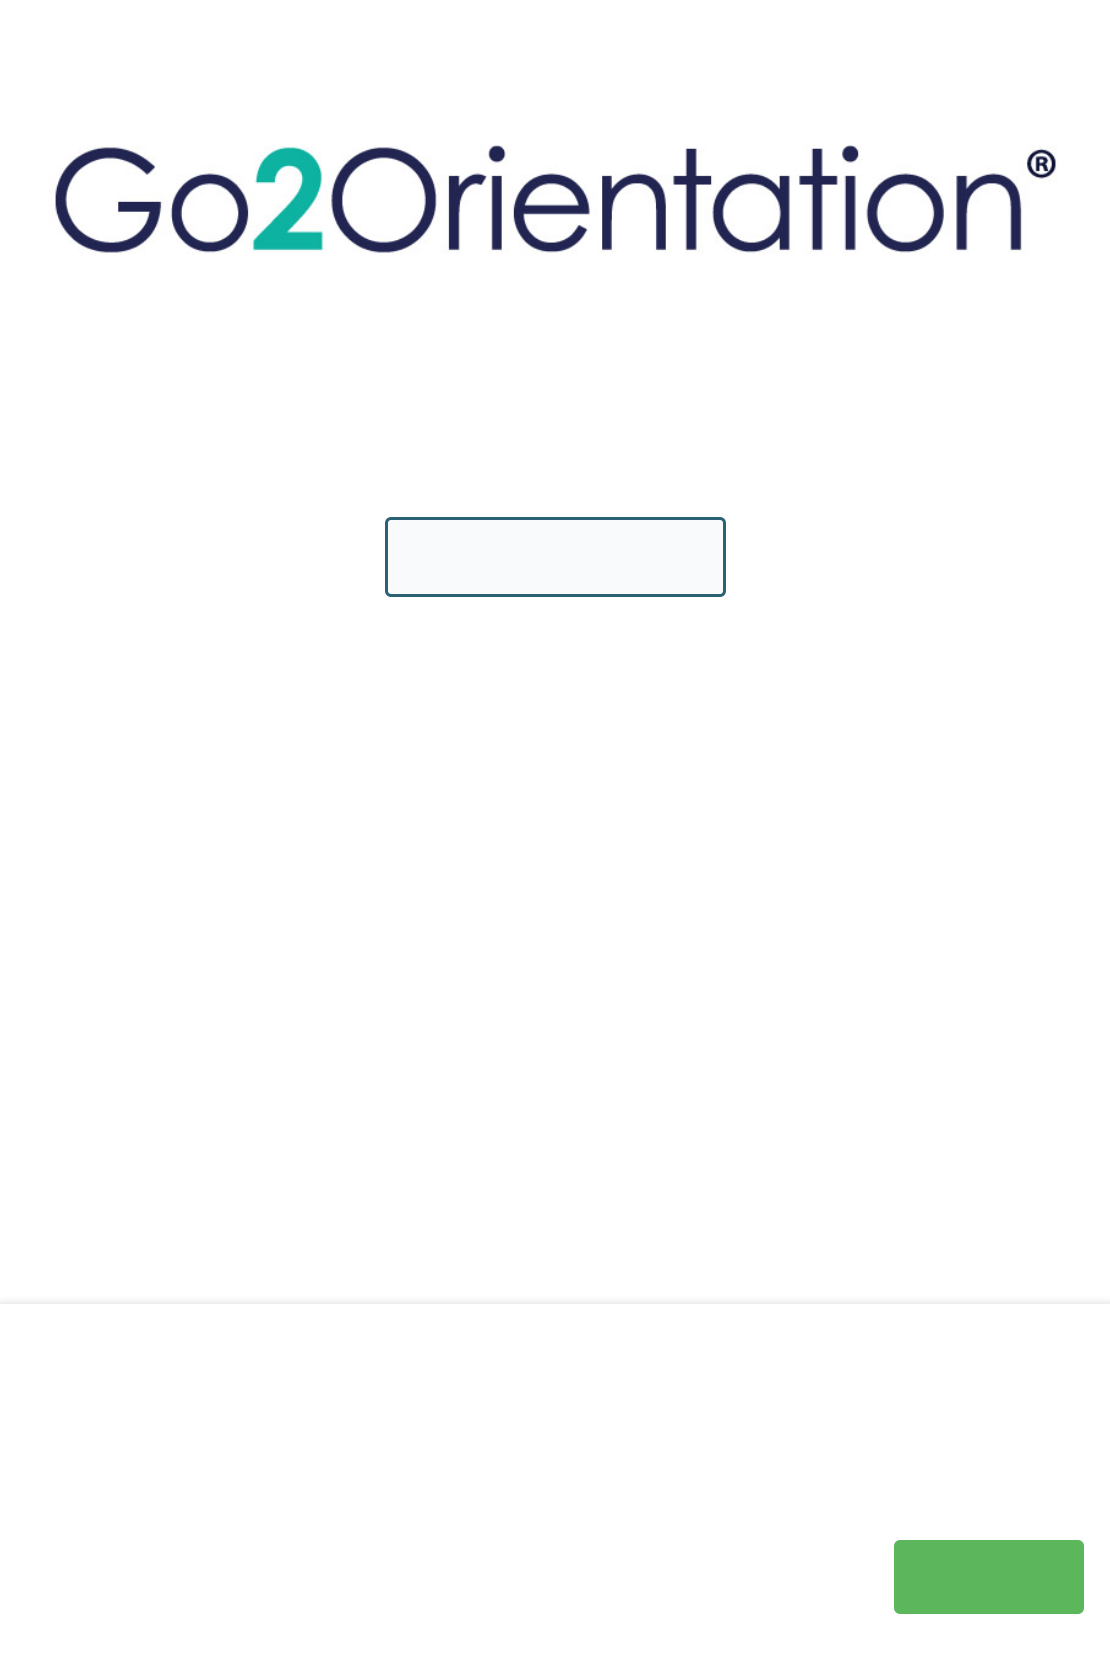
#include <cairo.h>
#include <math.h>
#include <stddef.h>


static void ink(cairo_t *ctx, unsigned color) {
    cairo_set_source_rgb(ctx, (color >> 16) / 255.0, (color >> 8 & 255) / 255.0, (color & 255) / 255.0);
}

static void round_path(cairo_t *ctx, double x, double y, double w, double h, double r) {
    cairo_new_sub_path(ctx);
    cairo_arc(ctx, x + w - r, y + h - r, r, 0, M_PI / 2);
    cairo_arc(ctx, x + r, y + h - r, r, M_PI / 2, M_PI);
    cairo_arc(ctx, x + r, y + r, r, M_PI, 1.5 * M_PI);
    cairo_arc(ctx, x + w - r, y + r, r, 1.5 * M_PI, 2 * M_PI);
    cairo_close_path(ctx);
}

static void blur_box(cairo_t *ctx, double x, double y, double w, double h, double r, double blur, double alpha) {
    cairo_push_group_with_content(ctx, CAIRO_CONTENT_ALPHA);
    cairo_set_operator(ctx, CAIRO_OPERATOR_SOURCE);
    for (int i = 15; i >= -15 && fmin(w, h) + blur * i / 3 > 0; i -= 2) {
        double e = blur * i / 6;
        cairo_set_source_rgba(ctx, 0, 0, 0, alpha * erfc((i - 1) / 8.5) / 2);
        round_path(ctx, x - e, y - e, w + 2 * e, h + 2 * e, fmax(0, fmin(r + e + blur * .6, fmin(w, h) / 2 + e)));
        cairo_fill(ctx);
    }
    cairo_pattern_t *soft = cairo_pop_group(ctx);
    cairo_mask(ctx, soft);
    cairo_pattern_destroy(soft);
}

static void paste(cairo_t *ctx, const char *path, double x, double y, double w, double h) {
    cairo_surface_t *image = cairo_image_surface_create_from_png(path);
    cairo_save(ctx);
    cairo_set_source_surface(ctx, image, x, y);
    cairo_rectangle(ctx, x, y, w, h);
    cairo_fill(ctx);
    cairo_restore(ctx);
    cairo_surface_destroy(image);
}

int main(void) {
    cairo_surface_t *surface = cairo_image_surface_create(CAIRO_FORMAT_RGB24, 1110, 1680);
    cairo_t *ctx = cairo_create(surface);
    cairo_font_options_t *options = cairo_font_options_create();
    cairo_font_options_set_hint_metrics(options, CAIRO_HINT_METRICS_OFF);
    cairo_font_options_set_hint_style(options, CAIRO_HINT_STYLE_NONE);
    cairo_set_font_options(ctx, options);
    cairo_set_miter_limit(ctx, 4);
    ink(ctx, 0xFFFFFF);
    cairo_paint(ctx);
    paste(ctx, "media/1.png", 49, 145, 1009, 109);
    ink(ctx, 0xF8FAFC);
    round_path(ctx, 386.5, 518.5, 338, 77, 4.5);
    cairo_fill_preserve(ctx);
    ink(ctx, 0x2A6175);
    cairo_set_line_width(ctx, 3);
    cairo_stroke(ctx);
    cairo_save(ctx);
    cairo_rectangle(ctx, 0, 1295, 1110, 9);
    cairo_clip(ctx);
    ink(ctx, 0xE9E9E9);
    blur_box(ctx, 0, 1301, 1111, 377, 0, 3, 1);
    cairo_restore(ctx);
    ink(ctx, 0x5BB65C);
    round_path(ctx, 894, 1540, 190, 74, 6);
    cairo_fill(ctx);
    cairo_surface_write_to_png(surface, "image.png");
    cairo_font_options_destroy(options);
    cairo_destroy(ctx);
    cairo_surface_destroy(surface);
    return 0;
}
